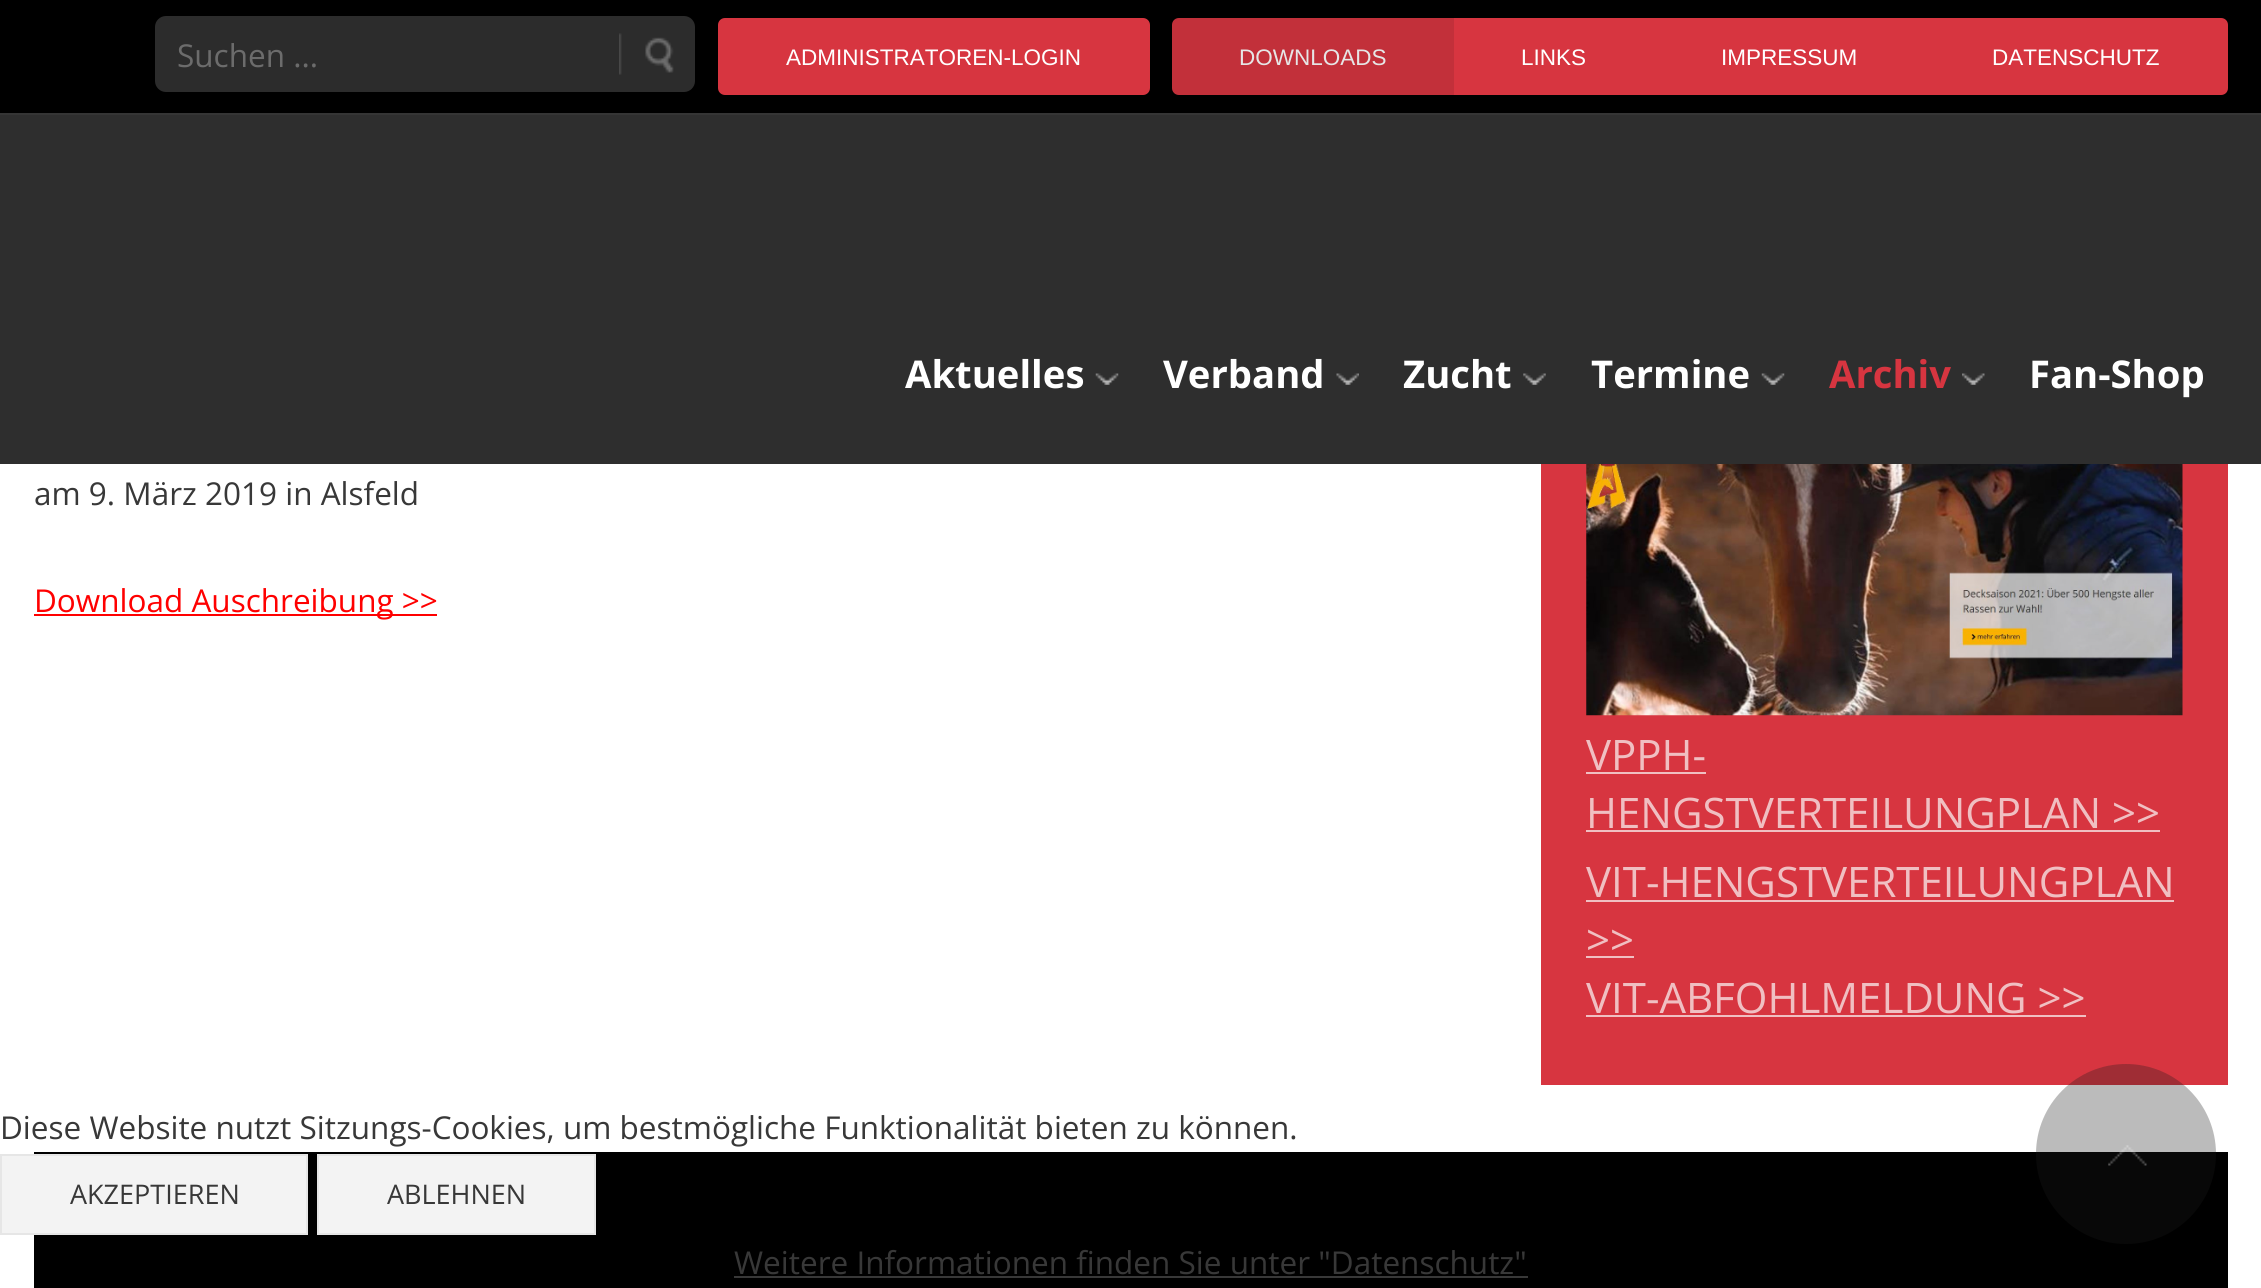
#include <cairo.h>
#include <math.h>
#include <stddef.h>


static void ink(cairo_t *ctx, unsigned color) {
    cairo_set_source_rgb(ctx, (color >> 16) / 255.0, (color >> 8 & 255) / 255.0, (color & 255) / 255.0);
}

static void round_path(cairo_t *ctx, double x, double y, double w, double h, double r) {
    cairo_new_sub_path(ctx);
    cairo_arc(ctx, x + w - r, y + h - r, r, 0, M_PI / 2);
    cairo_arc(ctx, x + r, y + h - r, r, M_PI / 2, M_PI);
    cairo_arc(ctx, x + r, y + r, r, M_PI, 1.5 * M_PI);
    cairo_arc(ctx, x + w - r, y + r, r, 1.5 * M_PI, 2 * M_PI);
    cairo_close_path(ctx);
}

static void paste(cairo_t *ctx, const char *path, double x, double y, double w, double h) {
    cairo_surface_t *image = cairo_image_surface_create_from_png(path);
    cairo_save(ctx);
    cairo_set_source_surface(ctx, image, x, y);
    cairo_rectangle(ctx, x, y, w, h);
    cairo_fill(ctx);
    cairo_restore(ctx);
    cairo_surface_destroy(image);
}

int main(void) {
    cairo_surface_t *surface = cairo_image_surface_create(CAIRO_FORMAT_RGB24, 2261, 1288);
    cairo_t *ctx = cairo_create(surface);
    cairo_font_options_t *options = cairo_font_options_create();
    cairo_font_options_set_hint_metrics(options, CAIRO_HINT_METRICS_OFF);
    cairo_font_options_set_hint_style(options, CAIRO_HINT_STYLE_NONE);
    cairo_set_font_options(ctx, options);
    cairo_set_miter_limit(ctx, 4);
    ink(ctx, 0xFFFFFF);
    cairo_paint(ctx);
    ink(ctx, 0x000000);
    cairo_rectangle(ctx, 0, 0, 2261, 113);
    cairo_fill(ctx);
    ink(ctx, 0x2C2C2C);
    round_path(ctx, 155, 16, 540, 76, 11);
    cairo_fill(ctx);
    cairo_select_font_face(ctx, "Open Sans", CAIRO_FONT_SLANT_NORMAL, CAIRO_FONT_WEIGHT_NORMAL);
    cairo_set_font_size(ctx, 31.5);
    ink(ctx, 0x6C6C6C);
    cairo_move_to(ctx, 177, 67);
    cairo_show_text(ctx, "Suchen ...");
    paste(ctx, "media/1.png", 619, 33, 55, 42);
    ink(ctx, 0xD73540);
    round_path(ctx, 718, 18, 432, 77, 7);
    cairo_fill(ctx);
    cairo_select_font_face(ctx, "Liberation Sans", CAIRO_FONT_SLANT_NORMAL, CAIRO_FONT_WEIGHT_NORMAL);
    cairo_set_font_size(ctx, 22.5);
    ink(ctx, 0xFFFFFF);
    cairo_move_to(ctx, 786, 65);
    cairo_show_text(ctx, "ADMINISTRATOREN-LOGIN");
    ink(ctx, 0xC2303A);
    cairo_new_path(ctx);
    cairo_move_to(ctx, 1179, 18);
    cairo_line_to(ctx, 1454, 18);
    cairo_line_to(ctx, 1454, 95);
    cairo_line_to(ctx, 1179, 95);
    cairo_curve_to(ctx, 1175, 95, 1172, 92, 1172, 88);
    cairo_line_to(ctx, 1172, 25);
    cairo_curve_to(ctx, 1172, 21, 1175, 18, 1179, 18);
    cairo_close_path(ctx);
    cairo_fill(ctx);
    ink(ctx, 0xE6E6E6);
    cairo_move_to(ctx, 1239, 65);
    cairo_show_text(ctx, "DOWNLOADS");
    ink(ctx, 0xD73540);
    cairo_rectangle(ctx, 1454, 18, 472, 77);
    cairo_fill(ctx);
    ink(ctx, 0xFFFFFF);
    cairo_move_to(ctx, 1521, 65);
    cairo_show_text(ctx, "LINKS");
    cairo_move_to(ctx, 1721, 65);
    cairo_show_text(ctx, "IMPRESSUM");
    ink(ctx, 0xD73540);
    cairo_new_path(ctx);
    cairo_move_to(ctx, 1926, 18);
    cairo_line_to(ctx, 2221, 18);
    cairo_curve_to(ctx, 2225, 18, 2228, 21, 2228, 25);
    cairo_line_to(ctx, 2228, 88);
    cairo_curve_to(ctx, 2228, 92, 2225, 95, 2221, 95);
    cairo_line_to(ctx, 1926, 95);
    cairo_close_path(ctx);
    cairo_fill(ctx);
    ink(ctx, 0xFFFFFF);
    cairo_move_to(ctx, 1992, 65);
    cairo_show_text(ctx, "DATENSCHUTZ");
    ink(ctx, 0x2E2E2E);
    cairo_rectangle(ctx, 0, 115, 2261, 349);
    cairo_fill(ctx);
    ink(ctx, 0x353535);
    cairo_rectangle(ctx, 0, 113, 2261, 2);
    cairo_fill(ctx);
    paste(ctx, "media/2.png", 1095, 373, 24, 12);
    cairo_select_font_face(ctx, "Open Sans", CAIRO_FONT_SLANT_NORMAL, CAIRO_FONT_WEIGHT_BOLD);
    cairo_set_font_size(ctx, 38.25);
    ink(ctx, 0xFFFFFF);
    cairo_move_to(ctx, 905, 388);
    cairo_show_text(ctx, "Aktuelles");
    paste(ctx, "media/3.png", 1336, 373, 23, 12);
    cairo_move_to(ctx, 1163, 388);
    cairo_show_text(ctx, "Verband");
    paste(ctx, "media/4.png", 1523, 373, 23, 12);
    cairo_move_to(ctx, 1403, 388);
    cairo_show_text(ctx, "Zucht");
    paste(ctx, "media/5.png", 1761, 373, 24, 12);
    cairo_move_to(ctx, 1591, 388);
    cairo_show_text(ctx, "Termine");
    paste(ctx, "media/6.png", 1962, 373, 23, 12);
    ink(ctx, 0xD73540);
    cairo_move_to(ctx, 1829, 388);
    cairo_show_text(ctx, "Archiv");
    ink(ctx, 0xFFFFFF);
    cairo_move_to(ctx, 2029, 388);
    cairo_show_text(ctx, "Fan-Shop");
    cairo_select_font_face(ctx, "Open Sans", CAIRO_FONT_SLANT_NORMAL, CAIRO_FONT_WEIGHT_NORMAL);
    cairo_set_font_size(ctx, 31.5);
    ink(ctx, 0x383838);
    cairo_move_to(ctx, 34, 505);
    cairo_show_text(ctx, "am 9. März 2019 in Alsfeld");
    ink(ctx, 0xFF0000);
    cairo_rectangle(ctx, 34, 614, 403, 2);
    cairo_fill(ctx);
    cairo_move_to(ctx, 34, 612);
    cairo_show_text(ctx, "Download Auschreibung >>");
    ink(ctx, 0xD73540);
    cairo_rectangle(ctx, 1541, 464, 687, 621);
    cairo_fill(ctx);
    paste(ctx, "media/7.png", 1586, 464, 597, 252);
    cairo_set_font_size(ctx, 42);
    ink(ctx, 0xF0BFC2);
    cairo_move_to(ctx, 1586, 770);
    cairo_show_text(ctx, "VPPH-");
    cairo_rectangle(ctx, 1586, 772, 120, 2);
    cairo_fill(ctx);
    cairo_move_to(ctx, 1586, 828);
    cairo_show_text(ctx, "HENGSTVERTEILUNGPLAN >>");
    cairo_rectangle(ctx, 1586, 830, 574, 2);
    cairo_fill(ctx);
    cairo_move_to(ctx, 1586, 897);
    cairo_show_text(ctx, "VIT-HENGSTVERTEILUNGPLAN");
    cairo_rectangle(ctx, 1586, 900, 588, 2);
    cairo_fill(ctx);
    cairo_move_to(ctx, 1586, 955);
    cairo_show_text(ctx, ">>");
    cairo_rectangle(ctx, 1586, 956, 48, 2);
    cairo_fill(ctx);
    cairo_move_to(ctx, 1586, 1013);
    cairo_show_text(ctx, "VIT-ABFOHLMELDUNG >>");
    cairo_rectangle(ctx, 1586, 1015, 500, 2);
    cairo_fill(ctx);
    ink(ctx, 0x000000);
    cairo_rectangle(ctx, 34, 1152, 2194, 136);
    cairo_fill(ctx);
    cairo_set_source_rgba(ctx, 0.106, 0.106, 0.106, 0.3);
    cairo_arc(ctx, 2126, 1154, 90, 0, 2 * M_PI);
    cairo_fill(ctx);
    paste(ctx, "media/8.png", 2108, 1145, 39, 21);
    cairo_set_font_size(ctx, 31.5);
    ink(ctx, 0x383838);
    cairo_move_to(ctx, 0, 1139);
    cairo_show_text(ctx, "Diese Website nutzt Sitzungs-Cookies, um bestmögliche Funktionalität bieten zu können.");
    ink(ctx, 0xF3F3F3);
    cairo_rectangle(ctx, 1, 1155, 306, 79);
    cairo_fill_preserve(ctx);
    ink(ctx, 0xE6E6E6);
    cairo_stroke(ctx);
    cairo_set_font_size(ctx, 27);
    ink(ctx, 0x383838);
    cairo_move_to(ctx, 70, 1204);
    cairo_show_text(ctx, "AKZEPTIEREN");
    ink(ctx, 0xF3F3F3);
    cairo_rectangle(ctx, 318, 1155, 277, 79);
    cairo_fill_preserve(ctx);
    ink(ctx, 0xE6E6E6);
    cairo_stroke(ctx);
    ink(ctx, 0x383838);
    cairo_move_to(ctx, 387, 1204);
    cairo_show_text(ctx, "ABLEHNEN");
    cairo_set_font_size(ctx, 31.5);
    cairo_move_to(ctx, 734, 1274);
    cairo_show_text(ctx, "Weitere Informationen finden Sie unter \"Datenschutz\"");
    cairo_rectangle(ctx, 734, 1276, 794, 2);
    cairo_fill(ctx);
    cairo_surface_write_to_png(surface, "image.png");
    cairo_font_options_destroy(options);
    cairo_destroy(ctx);
    cairo_surface_destroy(surface);
    return 0;
}
